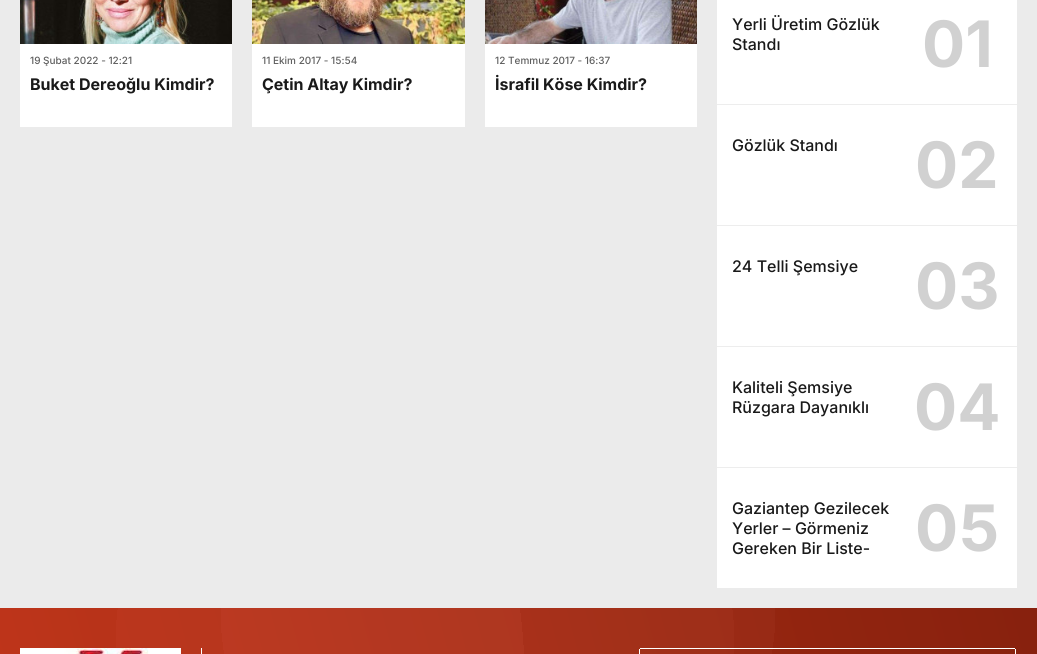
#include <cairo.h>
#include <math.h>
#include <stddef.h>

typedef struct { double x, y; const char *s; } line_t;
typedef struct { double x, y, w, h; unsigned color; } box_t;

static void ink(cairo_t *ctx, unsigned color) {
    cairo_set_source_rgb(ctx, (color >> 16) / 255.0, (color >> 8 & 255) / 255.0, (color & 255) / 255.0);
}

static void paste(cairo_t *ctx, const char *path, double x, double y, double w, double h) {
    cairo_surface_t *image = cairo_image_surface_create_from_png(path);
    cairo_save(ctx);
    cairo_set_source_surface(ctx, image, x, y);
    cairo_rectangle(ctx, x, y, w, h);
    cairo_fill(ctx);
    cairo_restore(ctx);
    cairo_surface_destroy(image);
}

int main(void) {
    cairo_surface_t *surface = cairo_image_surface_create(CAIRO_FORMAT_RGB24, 1037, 654);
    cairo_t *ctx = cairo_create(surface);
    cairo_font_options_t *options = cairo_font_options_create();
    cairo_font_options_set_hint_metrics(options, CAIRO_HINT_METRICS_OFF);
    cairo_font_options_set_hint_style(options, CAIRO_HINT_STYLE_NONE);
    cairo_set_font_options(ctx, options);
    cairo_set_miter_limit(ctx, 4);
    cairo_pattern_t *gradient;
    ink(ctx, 0xEBEBEB);
    cairo_paint(ctx);
    ink(ctx, 0xFFFFFF);
    cairo_rectangle(ctx, 20, 44, 212, 83);
    cairo_fill(ctx);
    paste(ctx, "media/1.png", 20, 0, 212, 44);
    cairo_select_font_face(ctx, "Inter Medium", CAIRO_FONT_SLANT_NORMAL, CAIRO_FONT_WEIGHT_NORMAL);
    cairo_set_font_size(ctx, 10);
    ink(ctx, 0x5E5E5E);
    cairo_move_to(ctx, 30, 64);
    cairo_show_text(ctx, "19 Şubat 2022 - 12:21");
    cairo_select_font_face(ctx, "Inter", CAIRO_FONT_SLANT_NORMAL, CAIRO_FONT_WEIGHT_BOLD);
    cairo_set_font_size(ctx, 16);
    ink(ctx, 0x191919);
    cairo_move_to(ctx, 30, 90);
    cairo_show_text(ctx, "Buket Dereoğlu Kimdir?");
    ink(ctx, 0xFFFFFF);
    cairo_rectangle(ctx, 252, 44, 213, 83);
    cairo_fill(ctx);
    paste(ctx, "media/2.png", 252, 0, 213, 44);
    cairo_select_font_face(ctx, "Inter Medium", CAIRO_FONT_SLANT_NORMAL, CAIRO_FONT_WEIGHT_NORMAL);
    cairo_set_font_size(ctx, 10);
    ink(ctx, 0x5E5E5E);
    cairo_move_to(ctx, 262, 64);
    cairo_show_text(ctx, "11 Ekim 2017 - 15:54");
    cairo_select_font_face(ctx, "Inter", CAIRO_FONT_SLANT_NORMAL, CAIRO_FONT_WEIGHT_BOLD);
    cairo_set_font_size(ctx, 16);
    ink(ctx, 0x191919);
    cairo_move_to(ctx, 262, 90);
    cairo_show_text(ctx, "Çetin Altay Kimdir?");
    ink(ctx, 0xFFFFFF);
    cairo_rectangle(ctx, 485, 44, 212, 83);
    cairo_fill(ctx);
    paste(ctx, "media/3.png", 485, 0, 212, 44);
    cairo_select_font_face(ctx, "Inter Medium", CAIRO_FONT_SLANT_NORMAL, CAIRO_FONT_WEIGHT_NORMAL);
    cairo_set_font_size(ctx, 10);
    ink(ctx, 0x5E5E5E);
    cairo_move_to(ctx, 495, 64);
    cairo_show_text(ctx, "12 Temmuz 2017 - 16:37");
    cairo_select_font_face(ctx, "Inter", CAIRO_FONT_SLANT_NORMAL, CAIRO_FONT_WEIGHT_BOLD);
    cairo_set_font_size(ctx, 16);
    ink(ctx, 0x191919);
    cairo_move_to(ctx, 495, 90);
    cairo_show_text(ctx, "İsrafil Köse Kimdir?");
    ink(ctx, 0xFFFFFF);
    cairo_rectangle(ctx, 717, 0, 300, 588);
    cairo_fill(ctx);
    ink(ctx, 0xEDEDED);
    cairo_rectangle(ctx, 717, 104, 300, 1);
    cairo_fill(ctx);
    cairo_select_font_face(ctx, "Inter Medium", CAIRO_FONT_SLANT_NORMAL, CAIRO_FONT_WEIGHT_NORMAL);
    ink(ctx, 0x191919);
    cairo_move_to(ctx, 732, 30);
    cairo_show_text(ctx, "Yerli Üretim Gözlük");
    cairo_move_to(ctx, 732, 50);
    cairo_show_text(ctx, "Standı");
    cairo_select_font_face(ctx, "Inter", CAIRO_FONT_SLANT_NORMAL, CAIRO_FONT_WEIGHT_BOLD);
    cairo_set_font_size(ctx, 64);
    ink(ctx, 0xD1D1D1);
    cairo_move_to(ctx, 922, 67);
    cairo_show_text(ctx, "01");
    ink(ctx, 0xEDEDED);
    cairo_rectangle(ctx, 717, 225, 300, 1);
    cairo_fill(ctx);
    cairo_select_font_face(ctx, "Inter Medium", CAIRO_FONT_SLANT_NORMAL, CAIRO_FONT_WEIGHT_NORMAL);
    cairo_set_font_size(ctx, 16);
    ink(ctx, 0x191919);
    cairo_move_to(ctx, 732, 151);
    cairo_show_text(ctx, "Gözlük Standı");
    cairo_select_font_face(ctx, "Inter", CAIRO_FONT_SLANT_NORMAL, CAIRO_FONT_WEIGHT_BOLD);
    cairo_set_font_size(ctx, 64);
    ink(ctx, 0xD1D1D1);
    cairo_move_to(ctx, 915, 188);
    cairo_show_text(ctx, "02");
    ink(ctx, 0xEDEDED);
    cairo_rectangle(ctx, 717, 346, 300, 1);
    cairo_fill(ctx);
    cairo_select_font_face(ctx, "Inter Medium", CAIRO_FONT_SLANT_NORMAL, CAIRO_FONT_WEIGHT_NORMAL);
    cairo_set_font_size(ctx, 16);
    ink(ctx, 0x191919);
    cairo_move_to(ctx, 732, 272);
    cairo_show_text(ctx, "24 Telli Şemsiye");
    cairo_select_font_face(ctx, "Inter", CAIRO_FONT_SLANT_NORMAL, CAIRO_FONT_WEIGHT_BOLD);
    cairo_set_font_size(ctx, 64);
    ink(ctx, 0xD1D1D1);
    cairo_move_to(ctx, 915, 309);
    cairo_show_text(ctx, "03");
    ink(ctx, 0xEDEDED);
    cairo_rectangle(ctx, 717, 467, 300, 1);
    cairo_fill(ctx);
    cairo_select_font_face(ctx, "Inter Medium", CAIRO_FONT_SLANT_NORMAL, CAIRO_FONT_WEIGHT_NORMAL);
    cairo_set_font_size(ctx, 16);
    ink(ctx, 0x191919);
    cairo_move_to(ctx, 732, 393);
    cairo_show_text(ctx, "Kaliteli Şemsiye");
    cairo_move_to(ctx, 732, 413);
    cairo_show_text(ctx, "Rüzgara Dayanıklı");
    cairo_select_font_face(ctx, "Inter", CAIRO_FONT_SLANT_NORMAL, CAIRO_FONT_WEIGHT_BOLD);
    cairo_set_font_size(ctx, 64);
    ink(ctx, 0xD1D1D1);
    cairo_move_to(ctx, 914, 430);
    cairo_show_text(ctx, "04");
    cairo_select_font_face(ctx, "Inter Medium", CAIRO_FONT_SLANT_NORMAL, CAIRO_FONT_WEIGHT_NORMAL);
    cairo_set_font_size(ctx, 16);
    ink(ctx, 0x191919);
    {
        static const line_t items[] = {
            {732, 514, "Gaziantep Gezilecek"},
            {732, 534, "Yerler – Görmeniz"},
            {732, 554, "Gereken Bir Liste-"},
        };
        for (size_t i = 0; i < sizeof items / sizeof *items; i++) {
            cairo_move_to(ctx, items[i].x, items[i].y);
            cairo_show_text(ctx, items[i].s);
        }
    }
    cairo_select_font_face(ctx, "Inter", CAIRO_FONT_SLANT_NORMAL, CAIRO_FONT_WEIGHT_BOLD);
    cairo_set_font_size(ctx, 64);
    ink(ctx, 0xD1D1D1);
    cairo_move_to(ctx, 915, 551);
    cairo_show_text(ctx, "05");
    gradient = cairo_pattern_create_linear(1019, 540, 18, 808);
    cairo_pattern_add_color_stop_rgba(gradient, 0, 0.616, 0.149, 0.063, 1);
    cairo_pattern_add_color_stop_rgba(gradient, 1, 0.843, 0.208, 0.086, 1);
    cairo_set_source(ctx, gradient);
    cairo_pattern_destroy(gradient);
    cairo_rectangle(ctx, 0, 608, 1037, 46);
    cairo_fill(ctx);
    gradient = cairo_pattern_create_radial(498, 609, 0, 498, 609, 555);
    cairo_pattern_add_color_stop_rgba(gradient, 0, 0.365, 0.365, 0.365, 0.05);
    cairo_pattern_add_color_stop_rgba(gradient, 0.5, 0.365, 0.365, 0.365, 0.05);
    cairo_pattern_add_color_stop_rgba(gradient, 0.5, 0.027, 0.027, 0.027, 0.05);
    cairo_pattern_add_color_stop_rgba(gradient, 1, 0.027, 0.027, 0.027, 0.05);
    cairo_set_source(ctx, gradient);
    cairo_pattern_destroy(gradient);
    cairo_rectangle(ctx, 0, 608, 1037, 46);
    cairo_fill(ctx);
    gradient = cairo_pattern_create_radial(425, 645, 0, 425, 645, 619);
    cairo_pattern_add_color_stop_rgba(gradient, 0, 0.318, 0.318, 0.318, 0.05);
    cairo_pattern_add_color_stop_rgba(gradient, 0.5, 0.318, 0.318, 0.318, 0.05);
    cairo_pattern_add_color_stop_rgba(gradient, 0.5, 0.027, 0.027, 0.027, 0.05);
    cairo_pattern_add_color_stop_rgba(gradient, 1, 0.027, 0.027, 0.027, 0.05);
    cairo_set_source(ctx, gradient);
    cairo_pattern_destroy(gradient);
    cairo_rectangle(ctx, 0, 608, 1037, 46);
    cairo_fill(ctx);
    gradient = cairo_pattern_create_radial(10, 677, 0, 10, 677, 1029);
    cairo_pattern_add_color_stop_rgba(gradient, 0, 0.545, 0.545, 0.545, 0.05);
    cairo_pattern_add_color_stop_rgba(gradient, 0.5, 0.545, 0.545, 0.545, 0.05);
    cairo_pattern_add_color_stop_rgba(gradient, 0.5, 0.082, 0.082, 0.082, 0.05);
    cairo_pattern_add_color_stop_rgba(gradient, 1, 0.082, 0.082, 0.082, 0.05);
    cairo_set_source(ctx, gradient);
    cairo_pattern_destroy(gradient);
    cairo_rectangle(ctx, 0, 608, 1037, 46);
    cairo_fill(ctx);
    ink(ctx, 0xFFFFFF);
    cairo_rectangle(ctx, 201, 648, 1, 6);
    cairo_fill(ctx);
    paste(ctx, "media/4.png", 20, 648, 161, 6);
    {
        static const box_t items[] = {
            {640, 648, 375, 1, 0xFFFFFF},
            {639, 649, 1, 5, 0xFFFFFF},
            {1015, 649, 1, 5, 0xFFFFFF},
        };
        for (size_t i = 0; i < sizeof items / sizeof *items; i++) {
            ink(ctx, items[i].color);
            cairo_rectangle(ctx, items[i].x, items[i].y, items[i].w, items[i].h);
            cairo_fill(ctx);
        }
    }
    cairo_surface_write_to_png(surface, "image.png");
    cairo_font_options_destroy(options);
    cairo_destroy(ctx);
    cairo_surface_destroy(surface);
    return 0;
}
